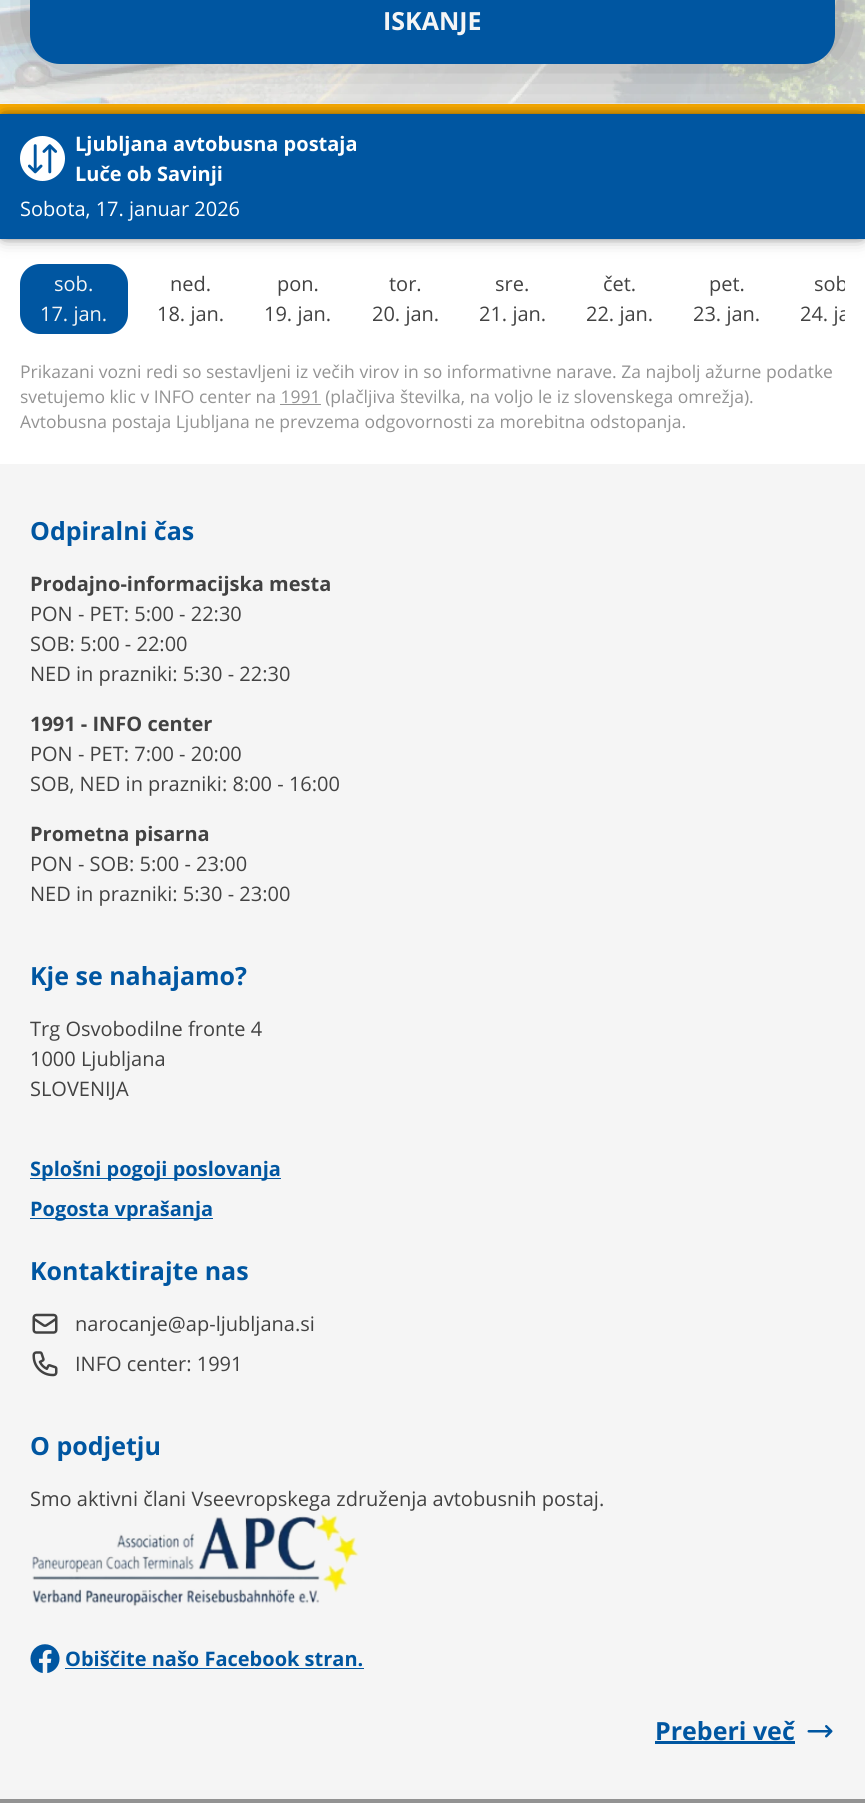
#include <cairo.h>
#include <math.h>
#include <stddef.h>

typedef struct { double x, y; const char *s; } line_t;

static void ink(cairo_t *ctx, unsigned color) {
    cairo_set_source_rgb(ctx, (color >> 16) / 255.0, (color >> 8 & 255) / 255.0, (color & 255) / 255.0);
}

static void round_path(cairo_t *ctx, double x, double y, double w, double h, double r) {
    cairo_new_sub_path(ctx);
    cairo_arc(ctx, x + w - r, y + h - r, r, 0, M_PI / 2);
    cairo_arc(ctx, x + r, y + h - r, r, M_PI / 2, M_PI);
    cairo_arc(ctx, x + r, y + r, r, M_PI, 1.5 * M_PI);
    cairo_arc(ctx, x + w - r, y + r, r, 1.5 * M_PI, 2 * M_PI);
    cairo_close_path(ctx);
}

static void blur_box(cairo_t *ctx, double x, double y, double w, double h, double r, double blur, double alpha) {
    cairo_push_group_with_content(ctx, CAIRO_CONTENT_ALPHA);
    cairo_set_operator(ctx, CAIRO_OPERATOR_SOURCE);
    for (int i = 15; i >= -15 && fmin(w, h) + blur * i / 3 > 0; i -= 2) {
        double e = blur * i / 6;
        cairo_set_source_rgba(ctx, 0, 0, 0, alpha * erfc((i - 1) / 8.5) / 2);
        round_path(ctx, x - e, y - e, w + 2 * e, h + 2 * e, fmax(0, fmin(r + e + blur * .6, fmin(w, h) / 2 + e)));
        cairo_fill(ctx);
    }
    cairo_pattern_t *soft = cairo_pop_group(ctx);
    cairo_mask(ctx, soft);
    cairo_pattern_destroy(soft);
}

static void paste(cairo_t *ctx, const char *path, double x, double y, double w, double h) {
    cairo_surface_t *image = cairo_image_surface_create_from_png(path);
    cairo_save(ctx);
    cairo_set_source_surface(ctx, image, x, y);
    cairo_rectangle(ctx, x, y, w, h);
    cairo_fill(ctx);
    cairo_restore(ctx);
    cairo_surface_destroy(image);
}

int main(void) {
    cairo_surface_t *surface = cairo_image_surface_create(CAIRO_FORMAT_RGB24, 865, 1803);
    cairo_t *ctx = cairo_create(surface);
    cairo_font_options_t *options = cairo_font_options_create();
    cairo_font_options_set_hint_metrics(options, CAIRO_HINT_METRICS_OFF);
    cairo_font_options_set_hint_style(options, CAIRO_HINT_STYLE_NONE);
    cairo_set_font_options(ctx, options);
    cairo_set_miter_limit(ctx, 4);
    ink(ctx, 0xFFFFFF);
    cairo_paint(ctx);
    paste(ctx, "media/1.png", 0, 0, 865, 104);
    ink(ctx, 0xFFAE00);
    cairo_rectangle(ctx, 0, 104, 865, 10);
    cairo_fill(ctx);
    ink(ctx, 0x000000);
    blur_box(ctx, 36, -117, 793, 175, 24, 31, 0.35);
    ink(ctx, 0x0056A1);
    cairo_new_path(ctx);
    cairo_move_to(ctx, 30, -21);
    cairo_line_to(ctx, 835, -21);
    cairo_line_to(ctx, 835, 34);
    cairo_curve_to(ctx, 835, 50.5, 821.5, 64, 805, 64);
    cairo_line_to(ctx, 60, 64);
    cairo_curve_to(ctx, 43.5, 64, 30, 50.5, 30, 34);
    cairo_close_path(ctx);
    cairo_fill(ctx);
    cairo_select_font_face(ctx, "Open Sans", CAIRO_FONT_SLANT_NORMAL, CAIRO_FONT_WEIGHT_BOLD);
    cairo_set_font_size(ctx, 25);
    ink(ctx, 0xF5F5F5);
    cairo_move_to(ctx, 383, 30);
    cairo_show_text(ctx, "ISKANJE");
    ink(ctx, 0x000000);
    blur_box(ctx, 3, 116, 860, 120, 0, 4, 0.5);
    ink(ctx, 0x0056A1);
    round_path(ctx, 20, 264, 108, 70, 20);
    cairo_fill(ctx);
    ink(ctx, 0x000000);
    blur_box(ctx, 4, 118, 857, 117, 0, 9.5, 0.5);
    ink(ctx, 0x0056A1);
    cairo_rectangle(ctx, 0, 114, 865, 125);
    cairo_fill(ctx);
    ink(ctx, 0xFFFFFF);
    cairo_arc(ctx, 42.5, 158.5, 22.5, 0, 2 * M_PI);
    cairo_fill(ctx);
    paste(ctx, "media/2.png", 28, 144, 30, 30);
    cairo_set_font_size(ctx, 20);
    cairo_move_to(ctx, 75, 151);
    cairo_show_text(ctx, "Ljubljana avtobusna postaja");
    cairo_move_to(ctx, 75, 181);
    cairo_show_text(ctx, "Luče ob Savinji");
    cairo_select_font_face(ctx, "Open Sans", CAIRO_FONT_SLANT_NORMAL, CAIRO_FONT_WEIGHT_NORMAL);
    cairo_move_to(ctx, 20, 216);
    cairo_show_text(ctx, "Sobota, 17. januar 2026");
    ink(ctx, 0xF5F5F5);
    cairo_move_to(ctx, 54, 291);
    cairo_show_text(ctx, "sob.");
    cairo_move_to(ctx, 40, 321);
    cairo_show_text(ctx, "17. jan.");
    ink(ctx, 0x424242);
    {
        static const line_t items[] = {
            {170, 291, "ned."},
            {157, 321, "18. jan."},
            {277, 291, "pon."},
            {264, 321, "19. jan."},
            {389, 291, "tor."},
            {372, 321, "20. jan."},
            {495, 291, "sre."},
            {479, 321, "21. jan."},
            {603, 291, "čet."},
            {586, 321, "22. jan."},
            {709, 291, "pet."},
            {693, 321, "23. jan."},
        };
        for (size_t i = 0; i < sizeof items / sizeof *items; i++) {
            cairo_move_to(ctx, items[i].x, items[i].y);
            cairo_show_text(ctx, items[i].s);
        }
    }
    cairo_save(ctx);
    cairo_rectangle(ctx, 20, 264, 825, 70);
    cairo_clip(ctx);
    cairo_move_to(ctx, 814, 291);
    cairo_show_text(ctx, "sob");
    cairo_move_to(ctx, 800, 321);
    cairo_show_text(ctx, "24. ja");
    cairo_restore(ctx);
    cairo_set_font_size(ctx, 17.5);
    ink(ctx, 0x939393);
    cairo_move_to(ctx, 20, 378);
    cairo_show_text(ctx, "Prikazani vozni redi so sestavljeni iz večih virov in so informativne narave. Za najbolj ažurne podatke");
    cairo_move_to(ctx, 20, 403);
    cairo_show_text(ctx, "svetujemo klic v INFO center na 1991 (plačljiva številka, na voljo le iz slovenskega omrežja).");
    cairo_rectangle(ctx, 280, 404, 41, 1);
    cairo_fill(ctx);
    cairo_move_to(ctx, 20, 428);
    cairo_show_text(ctx, "Avtobusna postaja Ljubljana ne prevzema odgovornosti za morebitna odstopanja.");
    ink(ctx, 0xF5F5F5);
    cairo_rectangle(ctx, 0, 464, 865, 1335);
    cairo_fill(ctx);
    cairo_select_font_face(ctx, "Open Sans", CAIRO_FONT_SLANT_NORMAL, CAIRO_FONT_WEIGHT_BOLD);
    cairo_set_font_size(ctx, 25);
    ink(ctx, 0x0056A1);
    cairo_move_to(ctx, 30, 540);
    cairo_show_text(ctx, "Odpiralni čas");
    cairo_set_font_size(ctx, 20);
    ink(ctx, 0x424242);
    cairo_move_to(ctx, 30, 591);
    cairo_show_text(ctx, "Prodajno-informacijska mesta");
    cairo_select_font_face(ctx, "Open Sans", CAIRO_FONT_SLANT_NORMAL, CAIRO_FONT_WEIGHT_NORMAL);
    {
        static const line_t items[] = {
            {30, 621, "PON - PET: 5:00 - 22:30"},
            {30, 651, "SOB: 5:00 - 22:00"},
            {30, 681, "NED in prazniki: 5:30 - 22:30"},
        };
        for (size_t i = 0; i < sizeof items / sizeof *items; i++) {
            cairo_move_to(ctx, items[i].x, items[i].y);
            cairo_show_text(ctx, items[i].s);
        }
    }
    cairo_select_font_face(ctx, "Open Sans", CAIRO_FONT_SLANT_NORMAL, CAIRO_FONT_WEIGHT_BOLD);
    cairo_move_to(ctx, 30, 731);
    cairo_show_text(ctx, "1991 - INFO center");
    cairo_select_font_face(ctx, "Open Sans", CAIRO_FONT_SLANT_NORMAL, CAIRO_FONT_WEIGHT_NORMAL);
    cairo_move_to(ctx, 30, 761);
    cairo_show_text(ctx, "PON - PET: 7:00 - 20:00");
    cairo_move_to(ctx, 30, 791);
    cairo_show_text(ctx, "SOB, NED in prazniki: 8:00 - 16:00");
    cairo_select_font_face(ctx, "Open Sans", CAIRO_FONT_SLANT_NORMAL, CAIRO_FONT_WEIGHT_BOLD);
    cairo_move_to(ctx, 30, 841);
    cairo_show_text(ctx, "Prometna pisarna");
    cairo_select_font_face(ctx, "Open Sans", CAIRO_FONT_SLANT_NORMAL, CAIRO_FONT_WEIGHT_NORMAL);
    cairo_move_to(ctx, 30, 871);
    cairo_show_text(ctx, "PON - SOB: 5:00 - 23:00");
    cairo_move_to(ctx, 30, 901);
    cairo_show_text(ctx, "NED in prazniki: 5:30 - 23:00");
    cairo_select_font_face(ctx, "Open Sans", CAIRO_FONT_SLANT_NORMAL, CAIRO_FONT_WEIGHT_BOLD);
    cairo_set_font_size(ctx, 25);
    ink(ctx, 0x0056A1);
    cairo_move_to(ctx, 30, 985);
    cairo_show_text(ctx, "Kje se nahajamo?");
    cairo_select_font_face(ctx, "Open Sans", CAIRO_FONT_SLANT_NORMAL, CAIRO_FONT_WEIGHT_NORMAL);
    cairo_set_font_size(ctx, 20);
    ink(ctx, 0x424242);
    {
        static const line_t items[] = {
            {30, 1036, "Trg Osvobodilne fronte 4"},
            {30, 1066, "1000 Ljubljana"},
            {30, 1096, "SLOVENIJA"},
        };
        for (size_t i = 0; i < sizeof items / sizeof *items; i++) {
            cairo_move_to(ctx, items[i].x, items[i].y);
            cairo_show_text(ctx, items[i].s);
        }
    }
    ink(ctx, 0x0056A1);
    cairo_rectangle(ctx, 30, 1178, 251, 1);
    cairo_fill(ctx);
    cairo_select_font_face(ctx, "Open Sans", CAIRO_FONT_SLANT_NORMAL, CAIRO_FONT_WEIGHT_BOLD);
    cairo_move_to(ctx, 30, 1176);
    cairo_show_text(ctx, "Splošni pogoji poslovanja");
    cairo_rectangle(ctx, 30, 1218, 183, 1);
    cairo_fill(ctx);
    cairo_move_to(ctx, 30, 1216);
    cairo_show_text(ctx, "Pogosta vprašanja");
    cairo_set_font_size(ctx, 25);
    cairo_move_to(ctx, 30, 1280);
    cairo_show_text(ctx, "Kontaktirajte nas");
    paste(ctx, "media/3.png", 32, 1313, 26, 21);
    cairo_select_font_face(ctx, "Open Sans", CAIRO_FONT_SLANT_NORMAL, CAIRO_FONT_WEIGHT_NORMAL);
    cairo_set_font_size(ctx, 20);
    ink(ctx, 0x424242);
    cairo_move_to(ctx, 75, 1331);
    cairo_show_text(ctx, "narocanje@ap-ljubljana.si");
    paste(ctx, "media/4.png", 32, 1351, 26, 26);
    cairo_move_to(ctx, 75, 1371);
    cairo_show_text(ctx, "INFO center: 1991");
    cairo_select_font_face(ctx, "Open Sans", CAIRO_FONT_SLANT_NORMAL, CAIRO_FONT_WEIGHT_BOLD);
    cairo_set_font_size(ctx, 25);
    ink(ctx, 0x0056A1);
    cairo_move_to(ctx, 30, 1455);
    cairo_show_text(ctx, "O podjetju");
    cairo_select_font_face(ctx, "Open Sans", CAIRO_FONT_SLANT_NORMAL, CAIRO_FONT_WEIGHT_NORMAL);
    cairo_set_font_size(ctx, 20);
    ink(ctx, 0x424242);
    cairo_move_to(ctx, 30, 1506);
    cairo_show_text(ctx, "Smo aktivni člani Vseevropskega združenja avtobusnih postaj.");
    paste(ctx, "media/5.png", 32, 1514, 327, 93);
    paste(ctx, "media/6.png", 30, 1644, 30, 29);
    cairo_select_font_face(ctx, "Open Sans", CAIRO_FONT_SLANT_NORMAL, CAIRO_FONT_WEIGHT_BOLD);
    ink(ctx, 0x0056A1);
    cairo_move_to(ctx, 65, 1666);
    cairo_show_text(ctx, "Obiščite našo Facebook stran.");
    cairo_rectangle(ctx, 65, 1668, 299, 1);
    cairo_fill(ctx);
    cairo_set_font_size(ctx, 25);
    cairo_move_to(ctx, 655, 1740);
    cairo_show_text(ctx, "Preberi več");
    cairo_rectangle(ctx, 655, 1741, 140, 3);
    cairo_fill(ctx);
    paste(ctx, "media/7.png", 807, 1725, 26, 13);
    ink(ctx, 0x939393);
    cairo_rectangle(ctx, 0, 1799, 865, 4);
    cairo_fill(ctx);
    cairo_surface_write_to_png(surface, "image.png");
    cairo_font_options_destroy(options);
    cairo_destroy(ctx);
    cairo_surface_destroy(surface);
    return 0;
}
